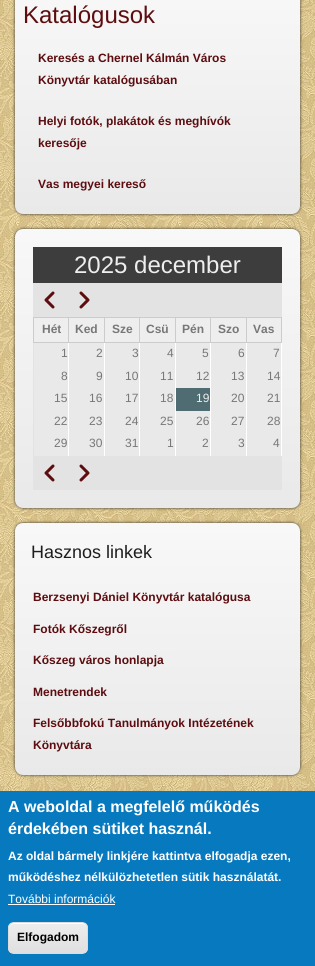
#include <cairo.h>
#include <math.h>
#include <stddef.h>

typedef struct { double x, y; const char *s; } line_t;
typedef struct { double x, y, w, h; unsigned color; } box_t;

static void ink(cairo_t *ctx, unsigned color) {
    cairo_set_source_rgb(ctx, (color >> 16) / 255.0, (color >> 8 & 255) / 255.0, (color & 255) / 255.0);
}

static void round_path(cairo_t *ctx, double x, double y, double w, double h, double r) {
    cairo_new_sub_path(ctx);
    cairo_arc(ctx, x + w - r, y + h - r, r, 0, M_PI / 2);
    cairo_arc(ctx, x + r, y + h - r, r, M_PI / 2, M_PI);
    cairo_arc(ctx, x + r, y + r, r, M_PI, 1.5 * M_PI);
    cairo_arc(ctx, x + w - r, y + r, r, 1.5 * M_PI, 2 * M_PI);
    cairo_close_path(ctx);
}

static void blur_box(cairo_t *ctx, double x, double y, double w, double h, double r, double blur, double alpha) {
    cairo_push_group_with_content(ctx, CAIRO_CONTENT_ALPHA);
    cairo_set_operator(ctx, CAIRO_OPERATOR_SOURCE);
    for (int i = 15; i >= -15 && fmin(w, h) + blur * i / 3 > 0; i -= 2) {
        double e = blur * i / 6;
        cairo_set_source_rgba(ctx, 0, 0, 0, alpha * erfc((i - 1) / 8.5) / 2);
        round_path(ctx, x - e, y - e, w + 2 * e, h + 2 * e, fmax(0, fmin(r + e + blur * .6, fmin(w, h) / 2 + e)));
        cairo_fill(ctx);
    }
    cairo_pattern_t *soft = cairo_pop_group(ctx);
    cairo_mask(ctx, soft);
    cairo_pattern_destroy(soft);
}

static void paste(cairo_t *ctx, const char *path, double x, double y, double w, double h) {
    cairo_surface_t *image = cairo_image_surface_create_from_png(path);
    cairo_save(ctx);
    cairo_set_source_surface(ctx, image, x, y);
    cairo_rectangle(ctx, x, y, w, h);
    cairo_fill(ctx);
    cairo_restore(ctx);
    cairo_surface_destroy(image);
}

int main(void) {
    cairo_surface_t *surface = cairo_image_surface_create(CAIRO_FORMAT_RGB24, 315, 966);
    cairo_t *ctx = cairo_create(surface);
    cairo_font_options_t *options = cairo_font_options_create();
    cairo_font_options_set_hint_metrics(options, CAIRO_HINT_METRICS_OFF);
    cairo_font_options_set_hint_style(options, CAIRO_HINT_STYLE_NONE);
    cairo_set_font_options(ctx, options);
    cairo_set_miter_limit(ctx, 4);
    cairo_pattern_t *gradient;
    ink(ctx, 0xFFFFFF);
    cairo_paint(ctx);
    paste(ctx, "media/1.png", 0, 0, 315, 791);
    ink(ctx, 0x2C2C2C);
    blur_box(ctx, 15, -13, 285, 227, 8, 1.5, 1);
    gradient = cairo_pattern_create_linear(158, -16, 158, 214);
    cairo_pattern_add_color_stop_rgba(gradient, 0, 0.973, 0.973, 0.973, 1);
    cairo_pattern_add_color_stop_rgba(gradient, 1, 0.914, 0.914, 0.914, 1);
    cairo_set_source(ctx, gradient);
    cairo_pattern_destroy(gradient);
    round_path(ctx, 15, -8, 285, 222, 8);
    cairo_fill(ctx);
    cairo_select_font_face(ctx, "Liberation Sans", CAIRO_FONT_SLANT_NORMAL, CAIRO_FONT_WEIGHT_NORMAL);
    cairo_set_font_size(ctx, 24);
    ink(ctx, 0x5D0D10);
    cairo_move_to(ctx, 23, 23);
    cairo_show_text(ctx, "Katalógusok");
    cairo_select_font_face(ctx, "Liberation Sans", CAIRO_FONT_SLANT_NORMAL, CAIRO_FONT_WEIGHT_BOLD);
    cairo_set_font_size(ctx, 12);
    {
        static const line_t items[] = {
            {38, 62, "Keresés a Chernel Kálmán Város"},
            {38, 84, "Könyvtár katalógusában"},
            {38, 125, "Helyi fotók, plakátok és meghívók"},
            {38, 147, "keresője"},
            {38, 188, "Vas megyei kereső"},
        };
        for (size_t i = 0; i < sizeof items / sizeof *items; i++) {
            cairo_move_to(ctx, items[i].x, items[i].y);
            cairo_show_text(ctx, items[i].s);
        }
    }
    ink(ctx, 0x2C2C2C);
    blur_box(ctx, 15, 229, 285, 279, 8, 1.5, 1);
    gradient = cairo_pattern_create_linear(157, 229, 158, 508);
    cairo_pattern_add_color_stop_rgba(gradient, 0, 0.973, 0.973, 0.973, 1);
    cairo_pattern_add_color_stop_rgba(gradient, 1, 0.914, 0.914, 0.914, 1);
    cairo_set_source(ctx, gradient);
    cairo_pattern_destroy(gradient);
    round_path(ctx, 15, 229, 285, 279, 8);
    cairo_fill(ctx);
    ink(ctx, 0xE3E3E3);
    cairo_rectangle(ctx, 33, 283, 249, 207);
    cairo_fill(ctx);
    ink(ctx, 0x3D3D3D);
    cairo_rectangle(ctx, 33, 247, 249, 36);
    cairo_fill(ctx);
    cairo_select_font_face(ctx, "Liberation Sans", CAIRO_FONT_SLANT_NORMAL, CAIRO_FONT_WEIGHT_NORMAL);
    cairo_set_font_size(ctx, 24);
    ink(ctx, 0xEEEEEE);
    cairo_move_to(ctx, 74, 273);
    cairo_show_text(ctx, "2025 december");
    cairo_new_path(ctx);
    cairo_move_to(ctx, 53, 307);
    cairo_line_to(ctx, 46, 300);
    cairo_line_to(ctx, 53, 293);
    cairo_move_to(ctx, 81, 293);
    cairo_line_to(ctx, 88, 300);
    cairo_line_to(ctx, 81, 307);
    ink(ctx, 0x5D0D10);
    cairo_set_line_width(ctx, 3);
    cairo_set_line_cap(ctx, CAIRO_LINE_CAP_ROUND);
    cairo_set_line_join(ctx, CAIRO_LINE_JOIN_ROUND);
    cairo_stroke(ctx);
    {
        static const box_t items[] = {
            {34, 318, 34, 24, 0xEEEEEE},
            {246, 317, 36, 1, 0xCCCCCC},
            {281, 342, 1, 114, 0xFFFFFF},
            {281, 317, 1, 26, 0xCCCCCC},
            {246, 342, 1, 114, 0xFFFFFF},
            {246, 342, 36, 1, 0xCCCCCC},
            {246, 317, 1, 26, 0xCCCCCC},
            {210, 317, 37, 1, 0xCCCCCC},
            {210, 342, 1, 114, 0xFFFFFF},
            {210, 342, 37, 1, 0xCCCCCC},
            {210, 317, 1, 26, 0xCCCCCC},
            {175, 317, 36, 1, 0xCCCCCC},
            {175, 342, 1, 114, 0xFFFFFF},
            {175, 342, 36, 1, 0xCCCCCC},
            {175, 317, 1, 26, 0xCCCCCC},
            {139, 317, 37, 1, 0xCCCCCC},
            {139, 342, 1, 114, 0xFFFFFF},
            {139, 342, 37, 1, 0xCCCCCC},
            {139, 317, 1, 26, 0xCCCCCC},
            {104, 317, 36, 1, 0xCCCCCC},
            {104, 342, 1, 114, 0xFFFFFF},
            {104, 342, 36, 1, 0xCCCCCC},
            {104, 317, 1, 26, 0xCCCCCC},
            {68, 317, 37, 1, 0xCCCCCC},
            {68, 342, 1, 114, 0xFFFFFF},
            {68, 342, 37, 1, 0xCCCCCC},
            {68, 317, 1, 26, 0xCCCCCC},
            {33, 317, 36, 1, 0xCCCCCC},
            {33, 342, 36, 1, 0xCCCCCC},
            {33, 317, 1, 26, 0xCCCCCC},
        };
        for (size_t i = 0; i < sizeof items / sizeof *items; i++) {
            ink(ctx, items[i].color);
            cairo_rectangle(ctx, items[i].x, items[i].y, items[i].w, items[i].h);
            cairo_fill(ctx);
        }
    }
    cairo_select_font_face(ctx, "Liberation Sans", CAIRO_FONT_SLANT_NORMAL, CAIRO_FONT_WEIGHT_BOLD);
    cairo_set_font_size(ctx, 12);
    ink(ctx, 0x777777);
    cairo_move_to(ctx, 42, 333);
    cairo_show_text(ctx, "Hét");
    ink(ctx, 0xEEEEEE);
    cairo_rectangle(ctx, 69, 318, 35, 24);
    cairo_fill(ctx);
    ink(ctx, 0x777777);
    cairo_move_to(ctx, 75, 333);
    cairo_show_text(ctx, "Ked");
    ink(ctx, 0xEEEEEE);
    cairo_rectangle(ctx, 105, 318, 34, 24);
    cairo_fill(ctx);
    ink(ctx, 0x777777);
    cairo_move_to(ctx, 112, 333);
    cairo_show_text(ctx, "Sze");
    ink(ctx, 0xEEEEEE);
    cairo_rectangle(ctx, 140, 318, 35, 24);
    cairo_fill(ctx);
    ink(ctx, 0x777777);
    cairo_move_to(ctx, 146, 333);
    cairo_show_text(ctx, "Csü");
    ink(ctx, 0xEEEEEE);
    cairo_rectangle(ctx, 176, 318, 34, 24);
    cairo_fill(ctx);
    ink(ctx, 0x777777);
    cairo_move_to(ctx, 182, 333);
    cairo_show_text(ctx, "Pén");
    ink(ctx, 0xEEEEEE);
    cairo_rectangle(ctx, 211, 318, 35, 24);
    cairo_fill(ctx);
    ink(ctx, 0x777777);
    cairo_move_to(ctx, 218, 333);
    cairo_show_text(ctx, "Szo");
    ink(ctx, 0xEEEEEE);
    cairo_rectangle(ctx, 247, 318, 34, 24);
    cairo_fill(ctx);
    ink(ctx, 0x777777);
    cairo_move_to(ctx, 253, 333);
    cairo_show_text(ctx, "Vas");
    ink(ctx, 0xE9E9E9);
    cairo_rectangle(ctx, 34, 343, 34, 113);
    cairo_fill(ctx);
    cairo_select_font_face(ctx, "Liberation Sans", CAIRO_FONT_SLANT_NORMAL, CAIRO_FONT_WEIGHT_NORMAL);
    ink(ctx, 0x777777);
    cairo_move_to(ctx, 61, 357);
    cairo_show_text(ctx, "1");
    ink(ctx, 0xE9E9E9);
    cairo_rectangle(ctx, 69, 343, 35, 113);
    cairo_fill(ctx);
    ink(ctx, 0x777777);
    cairo_move_to(ctx, 96, 357);
    cairo_show_text(ctx, "2");
    ink(ctx, 0xE9E9E9);
    cairo_rectangle(ctx, 105, 343, 34, 113);
    cairo_fill(ctx);
    ink(ctx, 0x777777);
    cairo_move_to(ctx, 132, 357);
    cairo_show_text(ctx, "3");
    ink(ctx, 0xE9E9E9);
    cairo_rectangle(ctx, 140, 343, 35, 113);
    cairo_fill(ctx);
    ink(ctx, 0x777777);
    cairo_move_to(ctx, 167, 357);
    cairo_show_text(ctx, "4");
    ink(ctx, 0xE9E9E9);
    cairo_rectangle(ctx, 176, 343, 34, 45);
    cairo_fill(ctx);
    ink(ctx, 0x777777);
    cairo_move_to(ctx, 202, 357);
    cairo_show_text(ctx, "5");
    ink(ctx, 0xE9E9E9);
    cairo_rectangle(ctx, 211, 343, 35, 113);
    cairo_fill(ctx);
    ink(ctx, 0x777777);
    cairo_move_to(ctx, 238, 357);
    cairo_show_text(ctx, "6");
    ink(ctx, 0xE9E9E9);
    cairo_rectangle(ctx, 247, 343, 34, 113);
    cairo_fill(ctx);
    ink(ctx, 0x777777);
    {
        static const line_t items[] = {
            {273, 357, "7"},
            {61, 380, "8"},
            {96, 380, "9"},
            {125, 380, "10"},
            {160, 380, "11"},
            {196, 380, "12"},
            {231, 380, "13"},
            {267, 380, "14"},
            {54, 402, "15"},
            {89, 402, "16"},
            {125, 402, "17"},
            {160, 402, "18"},
        };
        for (size_t i = 0; i < sizeof items / sizeof *items; i++) {
            cairo_move_to(ctx, items[i].x, items[i].y);
            cairo_show_text(ctx, items[i].s);
        }
    }
    ink(ctx, 0x4E6C71);
    cairo_rectangle(ctx, 176, 388, 34, 23);
    cairo_fill(ctx);
    ink(ctx, 0xEEEEEE);
    cairo_move_to(ctx, 196, 402);
    cairo_show_text(ctx, "19");
    ink(ctx, 0x777777);
    {
        static const line_t items[] = {
            {231, 402, "20"},
            {267, 402, "21"},
            {54, 425, "22"},
            {89, 425, "23"},
            {125, 425, "24"},
            {160, 425, "25"},
        };
        for (size_t i = 0; i < sizeof items / sizeof *items; i++) {
            cairo_move_to(ctx, items[i].x, items[i].y);
            cairo_show_text(ctx, items[i].s);
        }
    }
    ink(ctx, 0xE9E9E9);
    cairo_rectangle(ctx, 176, 411, 34, 45);
    cairo_fill(ctx);
    ink(ctx, 0x777777);
    {
        static const line_t items[] = {
            {196, 425, "26"},
            {231, 425, "27"},
            {267, 425, "28"},
            {54, 447, "29"},
            {89, 447, "30"},
            {125, 447, "31"},
            {167, 447, "1"},
            {202, 447, "2"},
            {238, 447, "3"},
            {273, 447, "4"},
        };
        for (size_t i = 0; i < sizeof items / sizeof *items; i++) {
            cairo_move_to(ctx, items[i].x, items[i].y);
            cairo_show_text(ctx, items[i].s);
        }
    }
    cairo_new_path(ctx);
    cairo_move_to(ctx, 53, 480);
    cairo_line_to(ctx, 46, 473);
    cairo_line_to(ctx, 53, 466);
    cairo_move_to(ctx, 81, 466);
    cairo_line_to(ctx, 88, 473);
    cairo_line_to(ctx, 81, 480);
    ink(ctx, 0x5D0D10);
    cairo_stroke(ctx);
    ink(ctx, 0x2C2C2C);
    blur_box(ctx, 15, 523, 285, 252, 8, 1.5, 1);
    gradient = cairo_pattern_create_linear(157, 523, 158, 775);
    cairo_pattern_add_color_stop_rgba(gradient, 0, 0.973, 0.973, 0.973, 1);
    cairo_pattern_add_color_stop_rgba(gradient, 1, 0.914, 0.914, 0.914, 1);
    cairo_set_source(ctx, gradient);
    cairo_pattern_destroy(gradient);
    round_path(ctx, 15, 523, 285, 252, 8);
    cairo_fill(ctx);
    cairo_set_font_size(ctx, 18);
    ink(ctx, 0x1E1E1E);
    cairo_move_to(ctx, 31, 558);
    cairo_show_text(ctx, "Hasznos linkek");
    cairo_select_font_face(ctx, "Liberation Sans", CAIRO_FONT_SLANT_NORMAL, CAIRO_FONT_WEIGHT_BOLD);
    cairo_set_font_size(ctx, 12);
    ink(ctx, 0x5D0D10);
    {
        static const line_t items[] = {
            {33, 601, "Berzsenyi Dániel Könyvtár katalógusa"},
            {33, 633, "Fotók Kőszegről"},
            {33, 664, "Kőszeg város honlapja"},
            {33, 696, "Menetrendek"},
            {33, 727, "Felsőbbfokú Tanulmányok Intézetének"},
            {33, 749, "Könyvtára"},
        };
        for (size_t i = 0; i < sizeof items / sizeof *items; i++) {
            cairo_move_to(ctx, items[i].x, items[i].y);
            cairo_show_text(ctx, items[i].s);
        }
    }
    ink(ctx, 0x0779BF);
    cairo_rectangle(ctx, 0, 791, 315, 175);
    cairo_fill(ctx);
    cairo_set_font_size(ctx, 16);
    ink(ctx, 0xFFFFFF);
    cairo_move_to(ctx, 8, 812);
    cairo_show_text(ctx, "A weboldal a megfelelő működés");
    cairo_move_to(ctx, 8, 834);
    cairo_show_text(ctx, "érdekében sütiket használ.");
    cairo_set_font_size(ctx, 12);
    cairo_move_to(ctx, 8, 860);
    cairo_show_text(ctx, "Az oldal bármely linkjére kattintva elfogadja ezen,");
    cairo_move_to(ctx, 8, 881);
    cairo_show_text(ctx, "működéshez nélkülözhetetlen sütik használatát.");
    cairo_select_font_face(ctx, "Liberation Sans", CAIRO_FONT_SLANT_NORMAL, CAIRO_FONT_WEIGHT_NORMAL);
    cairo_move_to(ctx, 8, 903);
    cairo_show_text(ctx, "További információk");
    cairo_rectangle(ctx, 8, 904, 107, 1);
    cairo_fill(ctx);
    cairo_save(ctx);
    round_path(ctx, 8, 922, 80, 32, 6);
    cairo_clip(ctx);
    gradient = cairo_pattern_create_linear(48, 923, 48, 953);
    cairo_pattern_add_color_stop_rgba(gradient, 0.05, 0.929, 0.929, 0.929, 1);
    cairo_pattern_add_color_stop_rgba(gradient, 1, 0.875, 0.875, 0.875, 1);
    cairo_set_source(ctx, gradient);
    cairo_pattern_destroy(gradient);
    cairo_rectangle(ctx, 8, 923, 80, 30);
    cairo_fill(ctx);
    cairo_restore(ctx);
    cairo_new_path(ctx);
    cairo_move_to(ctx, 14, 924);
    cairo_line_to(ctx, 82, 924);
    cairo_curve_to(ctx, 85, 924, 87, 926, 87, 929);
    cairo_curve_to(ctx, 87, 920, 76, 923, 71, 923);
    cairo_line_to(ctx, 25, 923);
    cairo_curve_to(ctx, 20, 923, 9, 920, 9, 929);
    cairo_curve_to(ctx, 9, 926, 11, 924, 14, 924);
    cairo_close_path(ctx);
    cairo_fill(ctx);
    round_path(ctx, 8.5, 922.5, 79, 31, 5.5);
    ink(ctx, 0xDCDCDC);
    cairo_set_line_width(ctx, 1);
    cairo_set_line_cap(ctx, CAIRO_LINE_CAP_BUTT);
    cairo_set_line_join(ctx, CAIRO_LINE_JOIN_MITER);
    cairo_stroke(ctx);
    cairo_select_font_face(ctx, "Liberation Sans", CAIRO_FONT_SLANT_NORMAL, CAIRO_FONT_WEIGHT_BOLD);
    ink(ctx, 0x000000);
    cairo_move_to(ctx, 17, 941);
    cairo_show_text(ctx, "Elfogadom");
    cairo_surface_write_to_png(surface, "image.png");
    cairo_font_options_destroy(options);
    cairo_destroy(ctx);
    cairo_surface_destroy(surface);
    return 0;
}
